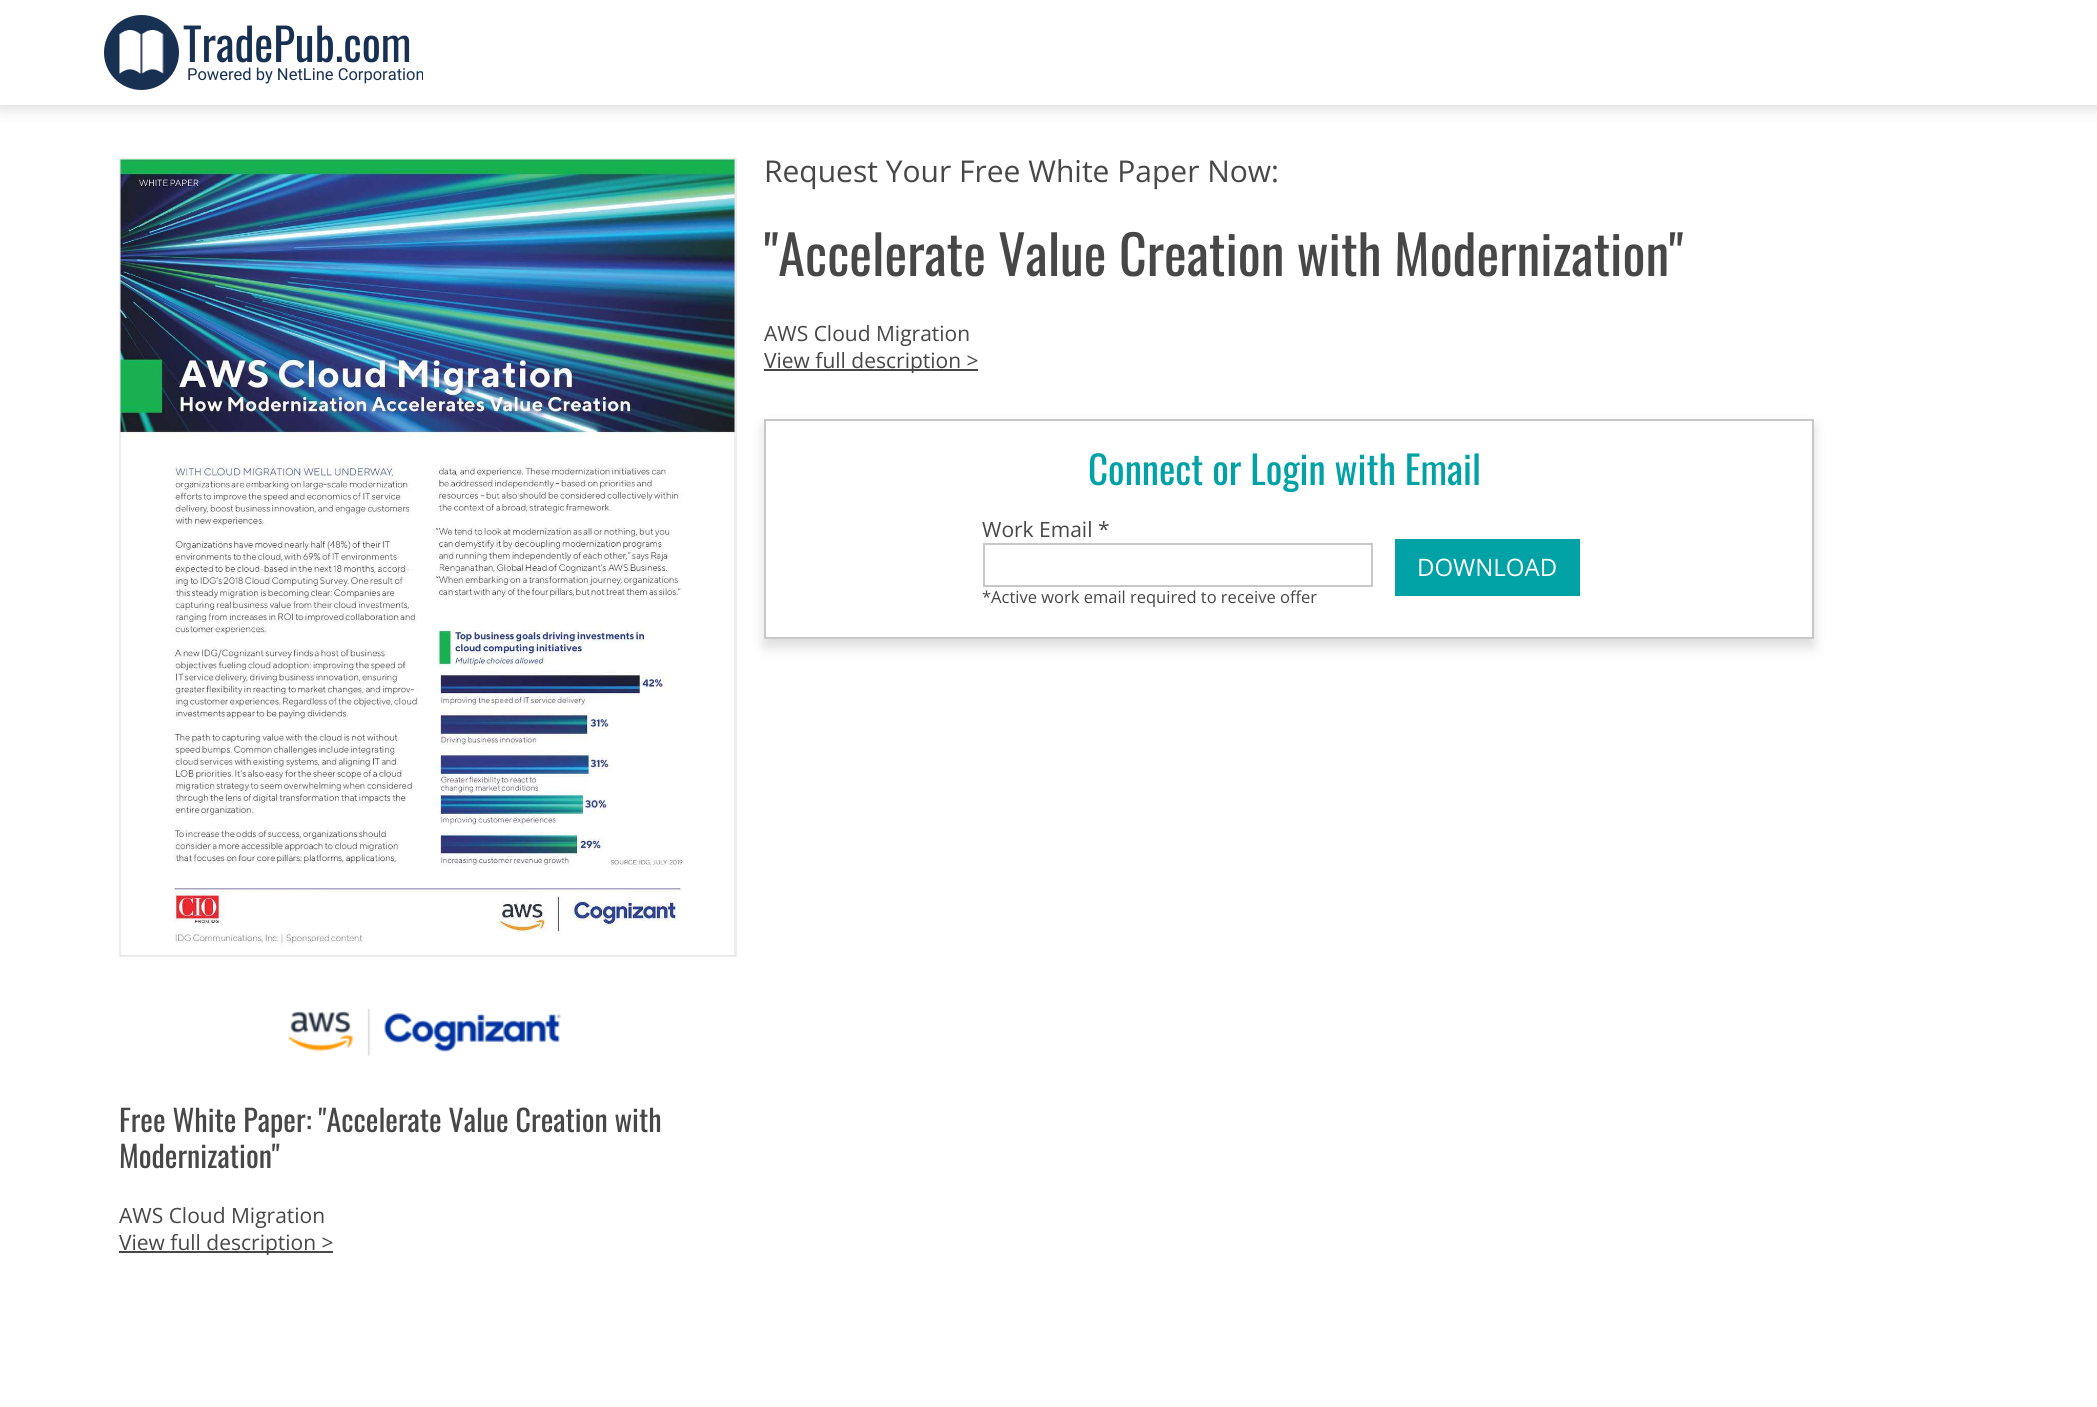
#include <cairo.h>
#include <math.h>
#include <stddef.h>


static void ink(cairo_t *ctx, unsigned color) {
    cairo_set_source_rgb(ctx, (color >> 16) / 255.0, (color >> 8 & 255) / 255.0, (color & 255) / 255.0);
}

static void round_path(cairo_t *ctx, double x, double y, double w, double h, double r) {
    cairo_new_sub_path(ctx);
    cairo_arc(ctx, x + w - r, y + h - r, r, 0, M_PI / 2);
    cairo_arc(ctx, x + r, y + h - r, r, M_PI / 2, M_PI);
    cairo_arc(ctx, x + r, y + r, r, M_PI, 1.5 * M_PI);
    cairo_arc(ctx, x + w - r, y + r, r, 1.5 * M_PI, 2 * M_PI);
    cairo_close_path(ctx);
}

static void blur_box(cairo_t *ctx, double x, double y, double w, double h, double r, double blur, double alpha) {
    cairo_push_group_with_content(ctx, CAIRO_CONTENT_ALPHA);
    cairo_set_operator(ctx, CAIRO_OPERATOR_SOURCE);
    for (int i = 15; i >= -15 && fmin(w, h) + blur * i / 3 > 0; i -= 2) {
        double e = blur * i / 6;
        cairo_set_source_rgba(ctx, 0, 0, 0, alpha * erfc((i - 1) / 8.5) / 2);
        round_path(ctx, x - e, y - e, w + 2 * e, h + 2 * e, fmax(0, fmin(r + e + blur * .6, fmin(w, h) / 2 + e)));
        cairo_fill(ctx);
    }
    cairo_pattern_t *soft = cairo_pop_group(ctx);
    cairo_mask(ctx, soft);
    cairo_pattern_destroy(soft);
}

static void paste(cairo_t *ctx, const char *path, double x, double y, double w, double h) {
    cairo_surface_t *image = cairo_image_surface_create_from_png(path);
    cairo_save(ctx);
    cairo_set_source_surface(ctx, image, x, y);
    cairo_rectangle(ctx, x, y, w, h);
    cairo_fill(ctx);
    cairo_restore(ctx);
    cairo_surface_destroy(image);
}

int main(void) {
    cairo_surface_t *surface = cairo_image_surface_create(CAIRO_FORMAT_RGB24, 2097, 1407);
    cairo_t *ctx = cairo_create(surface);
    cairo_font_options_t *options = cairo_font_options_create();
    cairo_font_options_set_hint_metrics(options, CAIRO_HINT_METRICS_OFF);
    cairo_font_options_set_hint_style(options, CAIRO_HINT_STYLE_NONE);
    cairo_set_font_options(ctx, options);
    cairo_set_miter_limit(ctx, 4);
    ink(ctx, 0xFFFFFF);
    cairo_paint(ctx);
    cairo_save(ctx);
    cairo_rectangle(ctx, 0, 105, 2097, 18);
    cairo_clip(ctx);
    ink(ctx, 0xCCCCCC);
    blur_box(ctx, 0, 0, 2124, 105, 0, 9, 1);
    cairo_restore(ctx);
    ink(ctx, 0x183152);
    cairo_arc(ctx, 141.5, 52.5, 37.5, 0, 2 * M_PI);
    cairo_fill(ctx);
    paste(ctx, "media/1.png", 119, 30, 45, 44);
    cairo_select_font_face(ctx, "Oswald", CAIRO_FONT_SLANT_NORMAL, CAIRO_FONT_WEIGHT_NORMAL);
    cairo_set_font_size(ctx, 45);
    cairo_move_to(ctx, 183, 62);
    cairo_show_text(ctx, "TradePub.com");
    cairo_select_font_face(ctx, "Roboto", CAIRO_FONT_SLANT_NORMAL, CAIRO_FONT_WEIGHT_NORMAL);
    cairo_set_font_size(ctx, 16.5);
    cairo_move_to(ctx, 187, 80);
    cairo_show_text(ctx, "Powered by NetLine Corporation");
    cairo_select_font_face(ctx, "Open Sans", CAIRO_FONT_SLANT_NORMAL, CAIRO_FONT_WEIGHT_NORMAL);
    cairo_set_font_size(ctx, 30);
    ink(ctx, 0x474747);
    cairo_move_to(ctx, 764, 182);
    cairo_show_text(ctx, "Request Your Free White Paper Now:");
    cairo_select_font_face(ctx, "Oswald", CAIRO_FONT_SLANT_NORMAL, CAIRO_FONT_WEIGHT_NORMAL);
    cairo_set_font_size(ctx, 54);
    cairo_move_to(ctx, 764, 276);
    cairo_show_text(ctx, "\"Accelerate Value Creation with Modernization\"");
    cairo_select_font_face(ctx, "Open Sans", CAIRO_FONT_SLANT_NORMAL, CAIRO_FONT_WEIGHT_NORMAL);
    cairo_set_font_size(ctx, 21);
    cairo_move_to(ctx, 764, 341);
    cairo_show_text(ctx, "AWS Cloud Migration");
    cairo_rectangle(ctx, 764, 369, 214, 2);
    cairo_fill(ctx);
    cairo_move_to(ctx, 764, 368);
    cairo_show_text(ctx, "View full description >");
    ink(ctx, 0xDDDDDD);
    blur_box(ctx, 764, 426, 1050, 221, 0, 6, 1);
    ink(ctx, 0xFFFFFF);
    cairo_rectangle(ctx, 765, 420, 1048, 218);
    cairo_fill_preserve(ctx);
    ink(ctx, 0xC8C8C8);
    cairo_stroke(ctx);
    cairo_select_font_face(ctx, "Oswald", CAIRO_FONT_SLANT_NORMAL, CAIRO_FONT_WEIGHT_NORMAL);
    cairo_set_font_size(ctx, 39);
    ink(ctx, 0x01A2A6);
    cairo_move_to(ctx, 1088, 485);
    cairo_show_text(ctx, "Connect or Login with Email");
    cairo_select_font_face(ctx, "Open Sans", CAIRO_FONT_SLANT_NORMAL, CAIRO_FONT_WEIGHT_NORMAL);
    cairo_set_font_size(ctx, 21);
    ink(ctx, 0x474747);
    cairo_move_to(ctx, 982, 537);
    cairo_show_text(ctx, "Work Email *");
    cairo_rectangle(ctx, 984, 544, 388, 42);
    ink(ctx, 0xC8C8C8);
    cairo_stroke(ctx);
    cairo_set_font_size(ctx, 16.5);
    ink(ctx, 0x474747);
    cairo_move_to(ctx, 982, 603);
    cairo_show_text(ctx, "*Active work email required to receive offer");
    ink(ctx, 0x01A2A6);
    cairo_rectangle(ctx, 1395, 539, 185, 57);
    cairo_fill(ctx);
    cairo_set_font_size(ctx, 24);
    ink(ctx, 0xFFFFFF);
    cairo_move_to(ctx, 1417, 576);
    cairo_show_text(ctx, "DOWNLOAD");
    cairo_rectangle(ctx, 120, 159, 616, 797);
    ink(ctx, 0xEEEEEE);
    cairo_stroke(ctx);
    paste(ctx, "media/2.png", 120, 159, 615, 797);
    paste(ctx, "media/3.png", 287, 1008, 274, 49);
    cairo_select_font_face(ctx, "Oswald", CAIRO_FONT_SLANT_NORMAL, CAIRO_FONT_WEIGHT_NORMAL);
    cairo_set_font_size(ctx, 30);
    ink(ctx, 0x474747);
    cairo_move_to(ctx, 119, 1132);
    cairo_show_text(ctx, "Free White Paper: \"Accelerate Value Creation with");
    cairo_move_to(ctx, 119, 1168);
    cairo_show_text(ctx, "Modernization\"");
    cairo_select_font_face(ctx, "Open Sans", CAIRO_FONT_SLANT_NORMAL, CAIRO_FONT_WEIGHT_NORMAL);
    cairo_set_font_size(ctx, 21);
    cairo_move_to(ctx, 119, 1223);
    cairo_show_text(ctx, "AWS Cloud Migration");
    cairo_rectangle(ctx, 119, 1251, 214, 2);
    cairo_fill(ctx);
    cairo_move_to(ctx, 119, 1250);
    cairo_show_text(ctx, "View full description >");
    cairo_surface_write_to_png(surface, "image.png");
    cairo_font_options_destroy(options);
    cairo_destroy(ctx);
    cairo_surface_destroy(surface);
    return 0;
}
